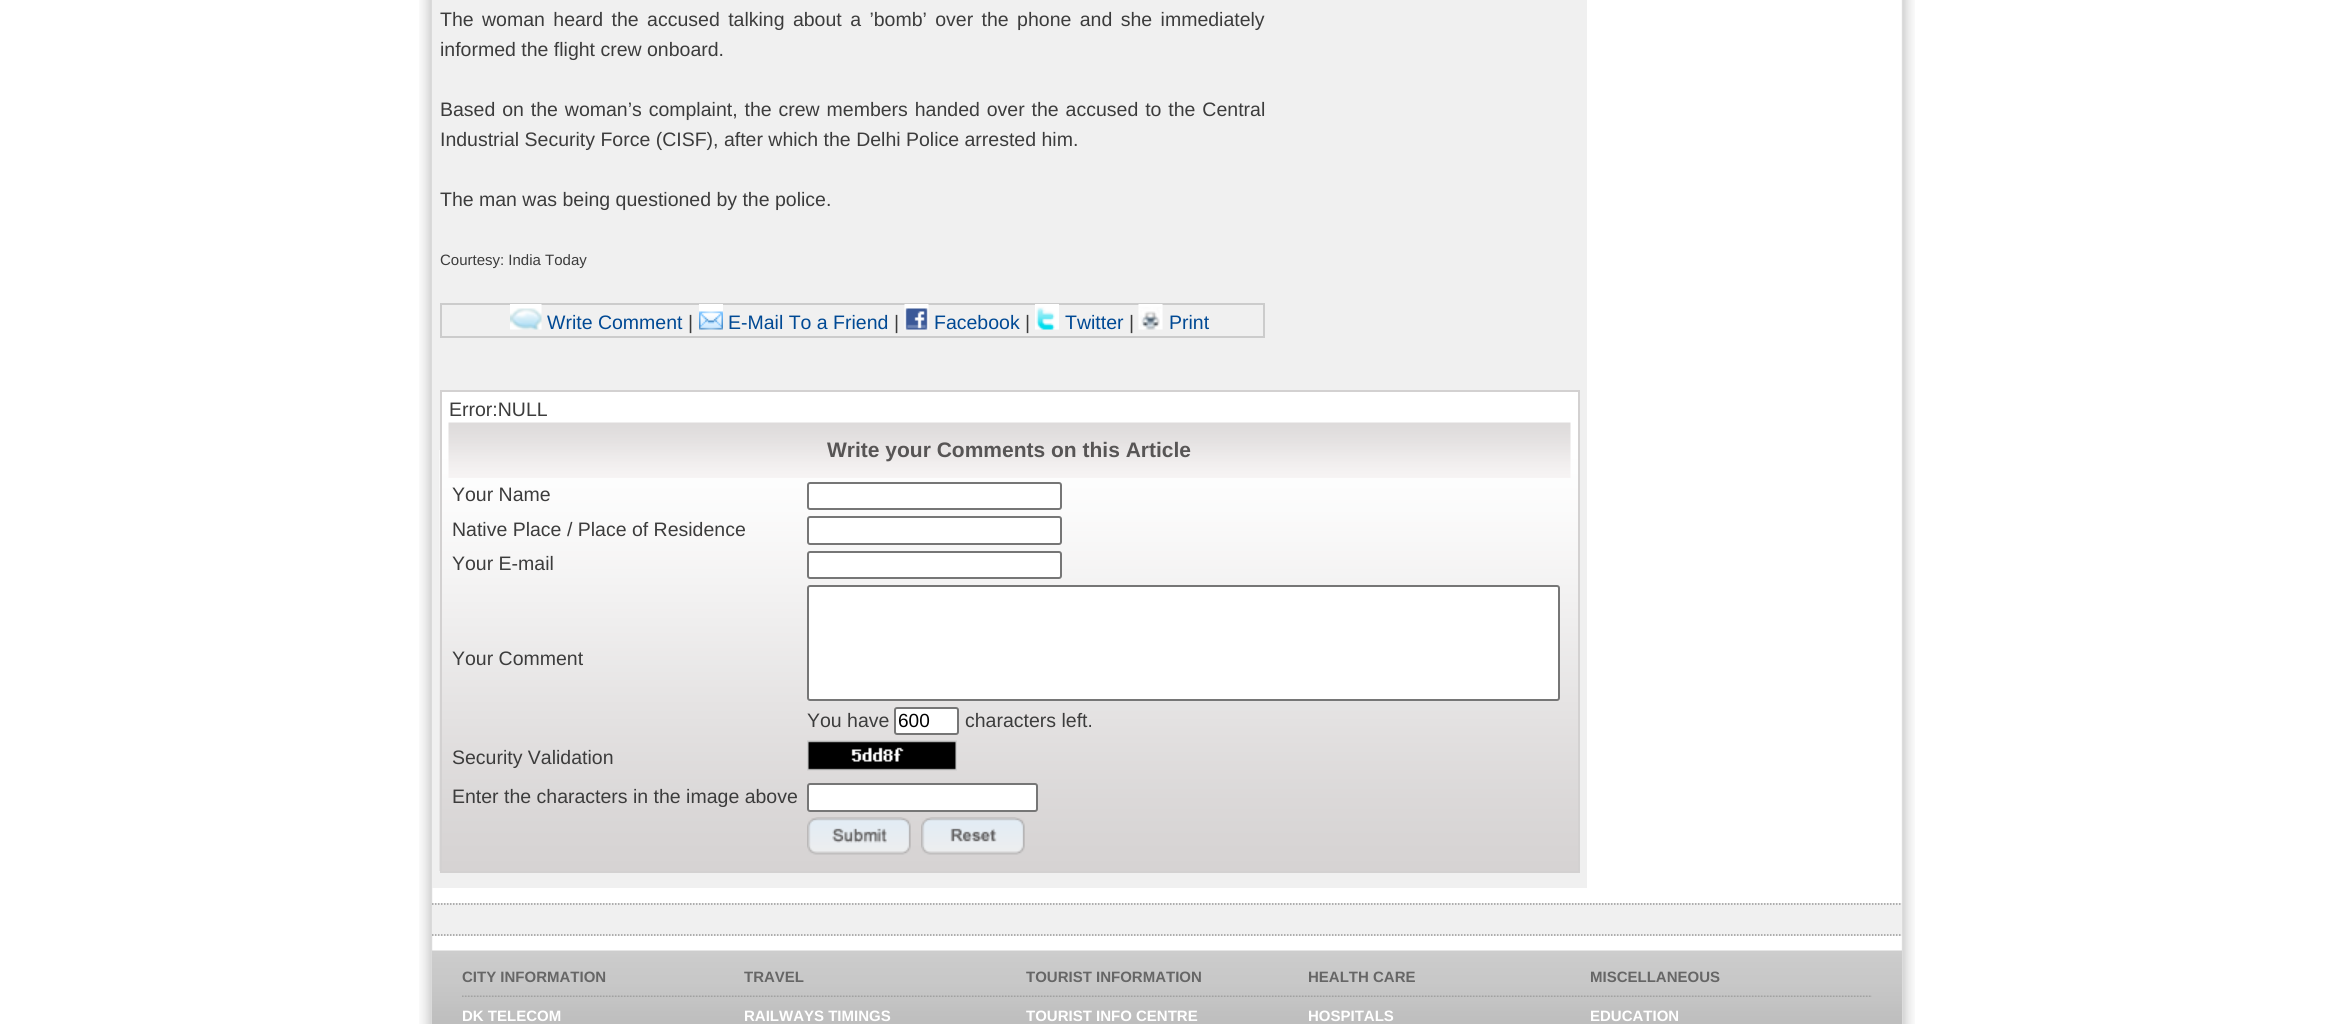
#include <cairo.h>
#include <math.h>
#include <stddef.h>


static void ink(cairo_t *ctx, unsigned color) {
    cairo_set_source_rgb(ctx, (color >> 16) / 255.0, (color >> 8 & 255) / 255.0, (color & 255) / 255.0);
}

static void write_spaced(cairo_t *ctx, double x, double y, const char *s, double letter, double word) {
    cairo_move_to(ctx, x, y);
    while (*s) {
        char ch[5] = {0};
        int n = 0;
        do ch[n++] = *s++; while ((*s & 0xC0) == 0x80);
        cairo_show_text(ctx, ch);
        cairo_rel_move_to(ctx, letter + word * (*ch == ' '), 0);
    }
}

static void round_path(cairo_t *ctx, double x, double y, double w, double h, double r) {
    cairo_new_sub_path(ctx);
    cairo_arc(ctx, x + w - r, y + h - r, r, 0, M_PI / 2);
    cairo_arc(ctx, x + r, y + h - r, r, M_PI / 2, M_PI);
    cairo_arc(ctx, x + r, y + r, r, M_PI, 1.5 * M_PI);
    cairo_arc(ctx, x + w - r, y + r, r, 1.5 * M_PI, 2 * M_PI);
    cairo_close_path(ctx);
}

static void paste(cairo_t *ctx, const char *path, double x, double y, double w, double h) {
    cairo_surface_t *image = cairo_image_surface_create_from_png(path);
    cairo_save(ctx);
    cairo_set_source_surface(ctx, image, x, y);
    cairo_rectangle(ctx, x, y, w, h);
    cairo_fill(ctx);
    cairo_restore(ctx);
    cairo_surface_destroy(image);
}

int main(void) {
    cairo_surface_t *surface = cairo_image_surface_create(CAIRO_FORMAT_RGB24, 2334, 1024);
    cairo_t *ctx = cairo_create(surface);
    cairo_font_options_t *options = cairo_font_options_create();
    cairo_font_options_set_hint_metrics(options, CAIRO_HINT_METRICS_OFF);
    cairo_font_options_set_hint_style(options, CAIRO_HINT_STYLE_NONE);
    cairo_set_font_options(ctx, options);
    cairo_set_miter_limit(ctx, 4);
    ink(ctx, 0xFFFFFF);
    cairo_paint(ctx);
    paste(ctx, "media/1.png", 419, 0, 1496, 1024);
    ink(ctx, 0xF0F0F0);
    cairo_rectangle(ctx, 432, 0, 1155, 888);
    cairo_fill(ctx);
    cairo_select_font_face(ctx, "Liberation Sans", CAIRO_FONT_SLANT_NORMAL, CAIRO_FONT_WEIGHT_NORMAL);
    cairo_set_font_size(ctx, 19.5);
    ink(ctx, 0x3C3C3C);
    write_spaced(ctx, 440, 26, "The woman heard the accused talking about a ’bomb’ over the phone and she immediately", 0, 3);
    cairo_move_to(ctx, 440, 56);
    cairo_show_text(ctx, "informed the flight crew onboard.");
    write_spaced(ctx, 440, 116, "Based on the woman’s complaint, the crew members handed over the accused to the Central", 0, 1.5);
    cairo_move_to(ctx, 440, 146);
    cairo_show_text(ctx, "Industrial Security Force (CISF), after which the Delhi Police arrested him.");
    cairo_move_to(ctx, 440, 206);
    cairo_show_text(ctx, "The man was being questioned by the police.");
    cairo_set_font_size(ctx, 15);
    cairo_move_to(ctx, 440, 265);
    cairo_show_text(ctx, "Courtesy: India Today");
    cairo_rectangle(ctx, 441, 304, 823, 33);
    ink(ctx, 0xCCCCCC);
    cairo_stroke(ctx);
    paste(ctx, "media/2.png", 510, 304, 32, 26);
    cairo_set_font_size(ctx, 19.5);
    ink(ctx, 0x004994);
    cairo_move_to(ctx, 547, 329);
    cairo_show_text(ctx, "Write Comment");
    ink(ctx, 0x3C3C3C);
    cairo_move_to(ctx, 688, 329);
    cairo_show_text(ctx, "|");
    paste(ctx, "media/3.png", 699, 304, 24, 26);
    ink(ctx, 0x004994);
    cairo_move_to(ctx, 728, 329);
    cairo_show_text(ctx, "E-Mail To a Friend");
    ink(ctx, 0x3C3C3C);
    cairo_move_to(ctx, 894, 329);
    cairo_show_text(ctx, "|");
    paste(ctx, "media/4.png", 904, 304, 25, 26);
    ink(ctx, 0x004994);
    cairo_move_to(ctx, 934, 329);
    cairo_show_text(ctx, "Facebook");
    ink(ctx, 0x3C3C3C);
    cairo_move_to(ctx, 1025, 329);
    cairo_show_text(ctx, "|");
    paste(ctx, "media/5.png", 1035, 304, 24, 26);
    ink(ctx, 0x004994);
    cairo_move_to(ctx, 1065, 329);
    cairo_show_text(ctx, "Twitter");
    ink(ctx, 0x3C3C3C);
    cairo_move_to(ctx, 1129, 329);
    cairo_show_text(ctx, "|");
    paste(ctx, "media/6.png", 1138, 304, 25, 26);
    ink(ctx, 0x004994);
    cairo_move_to(ctx, 1169, 329);
    cairo_show_text(ctx, "Print");
    ink(ctx, 0xFFFFFF);
    cairo_rectangle(ctx, 442, 392, 1136, 58);
    cairo_fill(ctx);
    paste(ctx, "media/7.png", 439, 450, 1139, 421);
    cairo_rectangle(ctx, 441, 391, 1138, 481);
    ink(ctx, 0xD3D1D1);
    cairo_stroke(ctx);
    ink(ctx, 0x3C3C3C);
    cairo_move_to(ctx, 449, 416);
    cairo_show_text(ctx, "Error:NULL");
    paste(ctx, "media/8.png", 448, 422, 1123, 56);
    cairo_select_font_face(ctx, "Liberation Sans", CAIRO_FONT_SLANT_NORMAL, CAIRO_FONT_WEIGHT_BOLD);
    cairo_set_font_size(ctx, 21);
    ink(ctx, 0x575555);
    cairo_move_to(ctx, 827, 457);
    cairo_show_text(ctx, "Write your Comments on this Article");
    cairo_select_font_face(ctx, "Liberation Sans", CAIRO_FONT_SLANT_NORMAL, CAIRO_FONT_WEIGHT_NORMAL);
    cairo_set_font_size(ctx, 19.5);
    ink(ctx, 0x3C3C3C);
    cairo_move_to(ctx, 452, 501);
    cairo_show_text(ctx, "Your Name");
    ink(ctx, 0xFFFFFF);
    round_path(ctx, 808, 483, 253, 26, 2);
    cairo_fill_preserve(ctx);
    ink(ctx, 0x767676);
    cairo_stroke(ctx);
    ink(ctx, 0x3C3C3C);
    cairo_move_to(ctx, 452, 536);
    cairo_show_text(ctx, "Native Place / Place of Residence");
    ink(ctx, 0xFFFFFF);
    round_path(ctx, 808, 517, 253, 27, 2);
    cairo_fill_preserve(ctx);
    ink(ctx, 0x767676);
    cairo_stroke(ctx);
    ink(ctx, 0x3C3C3C);
    cairo_move_to(ctx, 452, 570);
    cairo_show_text(ctx, "Your E-mail");
    ink(ctx, 0xFFFFFF);
    round_path(ctx, 808, 552, 253, 26, 2);
    cairo_fill_preserve(ctx);
    ink(ctx, 0x767676);
    cairo_stroke(ctx);
    ink(ctx, 0x3C3C3C);
    cairo_move_to(ctx, 452, 665);
    cairo_show_text(ctx, "Your Comment");
    ink(ctx, 0xFFFFFF);
    round_path(ctx, 808, 586, 751, 114, 2);
    cairo_fill_preserve(ctx);
    ink(ctx, 0x767676);
    cairo_stroke(ctx);
    ink(ctx, 0x3C3C3C);
    cairo_move_to(ctx, 807, 727);
    cairo_show_text(ctx, "You have");
    ink(ctx, 0xFFFFFF);
    round_path(ctx, 895, 708, 63, 26, 2);
    cairo_fill_preserve(ctx);
    ink(ctx, 0x767676);
    cairo_stroke(ctx);
    cairo_set_font_size(ctx, 19);
    ink(ctx, 0x000000);
    cairo_move_to(ctx, 898, 727);
    cairo_show_text(ctx, "600");
    cairo_set_font_size(ctx, 19.5);
    ink(ctx, 0x3C3C3C);
    cairo_move_to(ctx, 965, 727);
    cairo_show_text(ctx, "characters left.");
    cairo_move_to(ctx, 452, 764);
    cairo_show_text(ctx, "Security Validation");
    paste(ctx, "media/9.png", 807, 740, 150, 31);
    cairo_move_to(ctx, 452, 803);
    cairo_show_text(ctx, "Enter the characters in the image above");
    ink(ctx, 0xFFFFFF);
    round_path(ctx, 808, 784, 229, 27, 2);
    cairo_fill_preserve(ctx);
    ink(ctx, 0x767676);
    cairo_stroke(ctx);
    paste(ctx, "media/10.png", 807, 817, 104, 38);
    paste(ctx, "media/11.png", 921, 817, 104, 38);
    ink(ctx, 0xF0F0F0);
    cairo_rectangle(ctx, 432, 903, 1470, 33);
    cairo_fill(ctx);
    cairo_new_path(ctx);
    cairo_move_to(ctx, 432, 904);
    cairo_line_to(ctx, 1902, 904);
    ink(ctx, 0x999999);
    cairo_set_line_width(ctx, 1.5);
    cairo_set_dash(ctx, (double[]){1.5, 1.5}, 2, 0);
    cairo_stroke(ctx);
    cairo_new_path(ctx);
    cairo_move_to(ctx, 432, 935);
    cairo_line_to(ctx, 1902, 935);
    cairo_stroke(ctx);
    paste(ctx, "media/12.png", 432, 950, 1470, 74);
    paste(ctx, "media/13.png", 462, 995, 1410, 2);
    cairo_select_font_face(ctx, "Liberation Sans", CAIRO_FONT_SLANT_NORMAL, CAIRO_FONT_WEIGHT_BOLD);
    cairo_set_font_size(ctx, 15);
    ink(ctx, 0x666666);
    cairo_move_to(ctx, 462, 982);
    cairo_show_text(ctx, "CITY INFORMATION");
    ink(ctx, 0xFFFFFF);
    cairo_move_to(ctx, 462, 1021);
    cairo_show_text(ctx, "DK TELECOM");
    ink(ctx, 0x666666);
    cairo_move_to(ctx, 744, 982);
    cairo_show_text(ctx, "TRAVEL");
    ink(ctx, 0xFFFFFF);
    cairo_move_to(ctx, 744, 1021);
    cairo_show_text(ctx, "RAILWAYS TIMINGS");
    ink(ctx, 0x666666);
    cairo_move_to(ctx, 1026, 982);
    cairo_show_text(ctx, "TOURIST INFORMATION");
    ink(ctx, 0xFFFFFF);
    cairo_move_to(ctx, 1026, 1021);
    cairo_show_text(ctx, "TOURIST INFO CENTRE");
    ink(ctx, 0x666666);
    cairo_move_to(ctx, 1308, 982);
    cairo_show_text(ctx, "HEALTH CARE");
    ink(ctx, 0xFFFFFF);
    cairo_move_to(ctx, 1308, 1021);
    cairo_show_text(ctx, "HOSPITALS");
    ink(ctx, 0x666666);
    cairo_move_to(ctx, 1590, 982);
    cairo_show_text(ctx, "MISCELLANEOUS");
    ink(ctx, 0xFFFFFF);
    cairo_move_to(ctx, 1590, 1021);
    cairo_show_text(ctx, "EDUCATION");
    cairo_surface_write_to_png(surface, "image.png");
    cairo_font_options_destroy(options);
    cairo_destroy(ctx);
    cairo_surface_destroy(surface);
    return 0;
}
